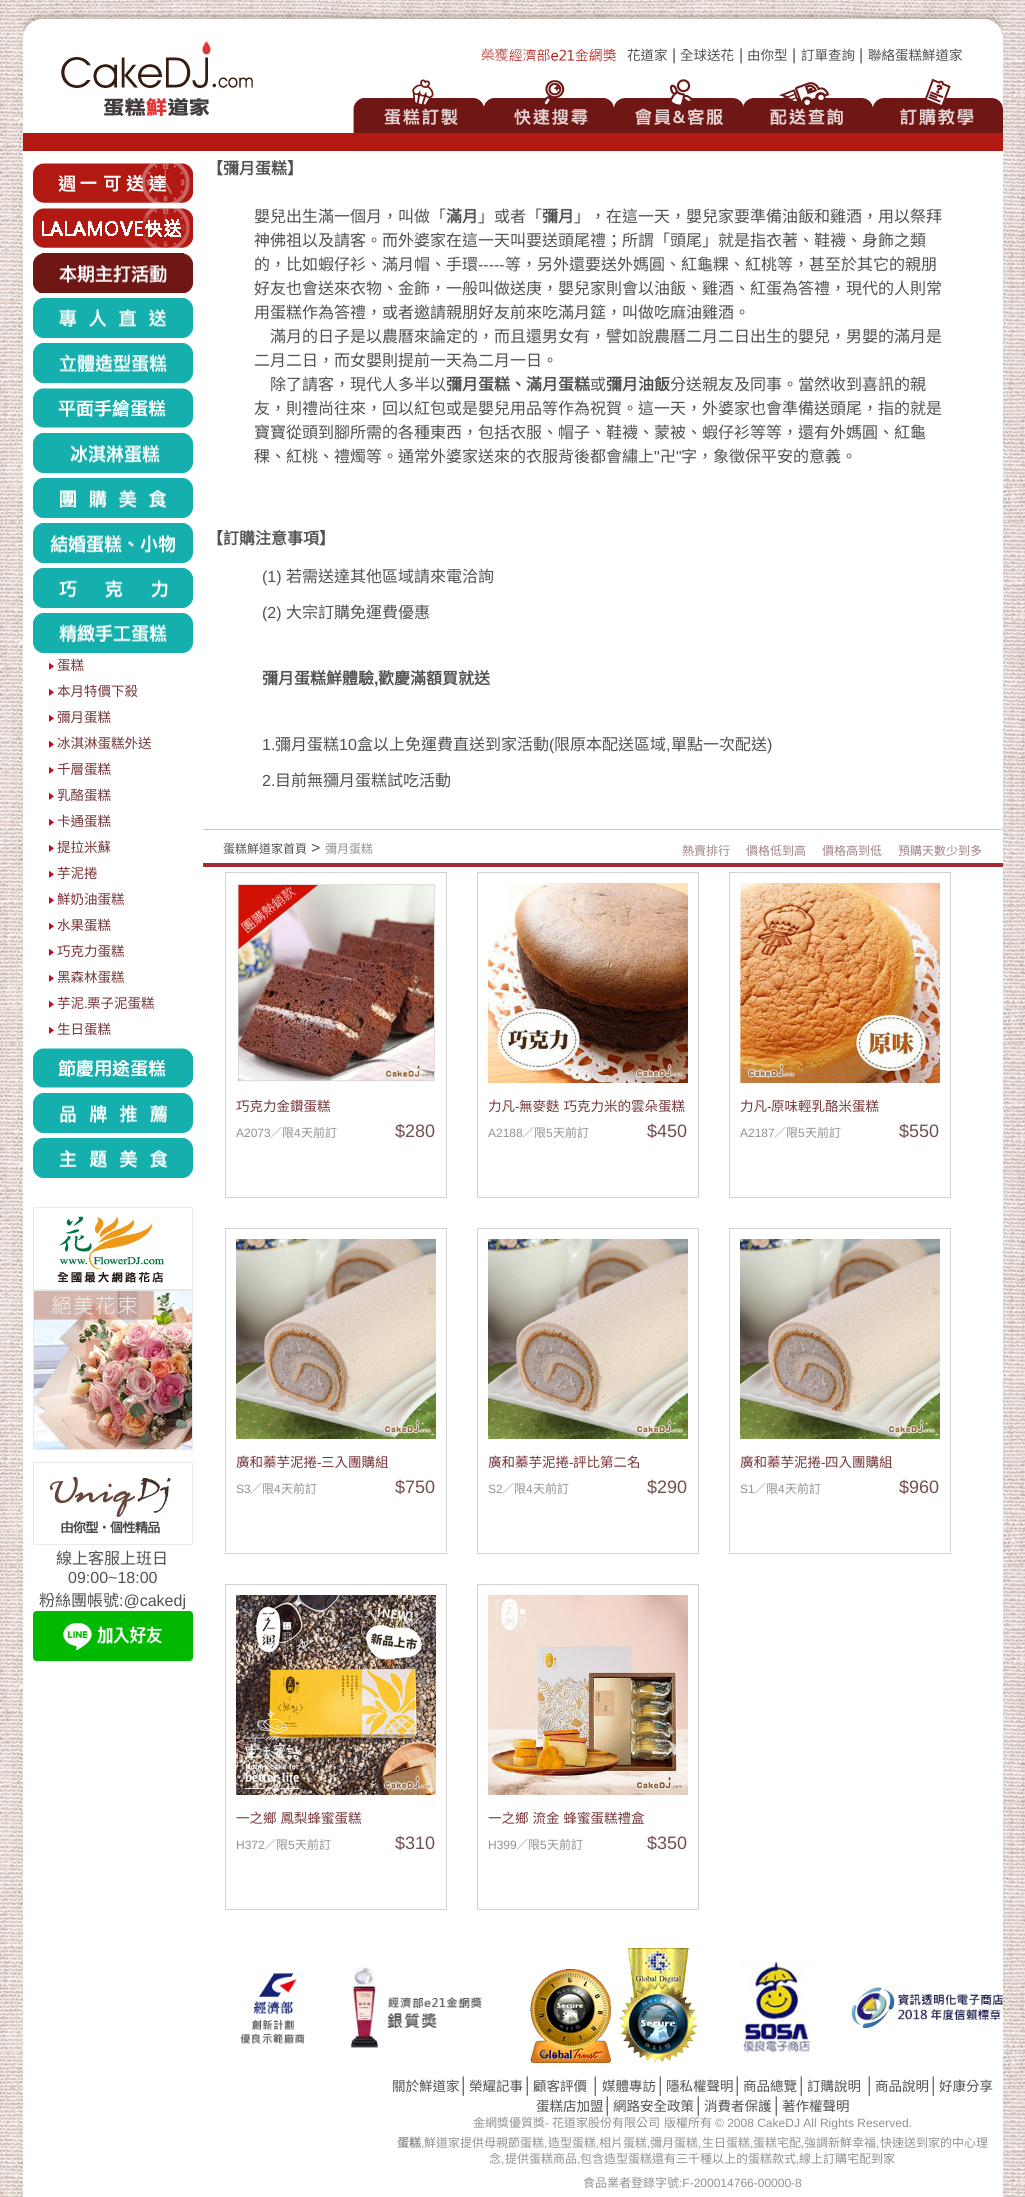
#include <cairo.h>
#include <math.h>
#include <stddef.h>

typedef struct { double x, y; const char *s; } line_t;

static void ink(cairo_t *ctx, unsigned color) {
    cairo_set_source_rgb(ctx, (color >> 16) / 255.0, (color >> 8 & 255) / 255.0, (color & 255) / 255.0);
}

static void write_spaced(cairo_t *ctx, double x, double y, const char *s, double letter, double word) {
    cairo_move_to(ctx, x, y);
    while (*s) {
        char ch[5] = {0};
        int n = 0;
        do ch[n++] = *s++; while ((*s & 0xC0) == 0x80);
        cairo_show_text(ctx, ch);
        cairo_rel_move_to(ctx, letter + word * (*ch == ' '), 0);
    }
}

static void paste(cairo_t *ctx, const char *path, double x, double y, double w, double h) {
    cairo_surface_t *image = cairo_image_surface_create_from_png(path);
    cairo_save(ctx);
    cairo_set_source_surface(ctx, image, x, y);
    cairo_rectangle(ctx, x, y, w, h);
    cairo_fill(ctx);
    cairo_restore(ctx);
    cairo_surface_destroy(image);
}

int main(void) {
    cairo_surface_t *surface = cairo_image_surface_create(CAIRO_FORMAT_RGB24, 1025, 2197);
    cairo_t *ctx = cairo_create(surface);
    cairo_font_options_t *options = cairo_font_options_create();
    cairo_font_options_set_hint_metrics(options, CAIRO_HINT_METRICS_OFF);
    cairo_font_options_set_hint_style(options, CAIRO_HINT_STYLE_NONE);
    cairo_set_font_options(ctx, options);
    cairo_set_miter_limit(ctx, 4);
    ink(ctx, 0xFFFFFF);
    cairo_paint(ctx);
    paste(ctx, "media/1.png", 0, 0, 1025, 2197);
    paste(ctx, "media/2.png", 23, 11, 980, 29);
    ink(ctx, 0xFFFFFF);
    cairo_rectangle(ctx, 23, 40, 980, 93);
    cairo_fill(ctx);
    paste(ctx, "media/3.png", 61, 41, 192, 75);
    paste(ctx, "media/4.png", 481, 48, 135, 14);
    cairo_select_font_face(ctx, "Noto Sans CJK TC", CAIRO_FONT_SLANT_NORMAL, CAIRO_FONT_WEIGHT_NORMAL);
    cairo_set_font_size(ctx, 13.5);
    ink(ctx, 0x515151);
    cairo_move_to(ctx, 627, 60);
    cairo_show_text(ctx, "花道家");
    cairo_select_font_face(ctx, "Liberation Sans", CAIRO_FONT_SLANT_NORMAL, CAIRO_FONT_WEIGHT_NORMAL);
    cairo_set_font_size(ctx, 16);
    cairo_move_to(ctx, 672, 60);
    cairo_show_text(ctx, "|");
    cairo_select_font_face(ctx, "Noto Sans CJK TC", CAIRO_FONT_SLANT_NORMAL, CAIRO_FONT_WEIGHT_NORMAL);
    cairo_set_font_size(ctx, 13.5);
    cairo_move_to(ctx, 680, 60);
    cairo_show_text(ctx, "全球送花");
    cairo_select_font_face(ctx, "Liberation Sans", CAIRO_FONT_SLANT_NORMAL, CAIRO_FONT_WEIGHT_NORMAL);
    cairo_set_font_size(ctx, 16);
    cairo_move_to(ctx, 739, 60);
    cairo_show_text(ctx, "|");
    cairo_select_font_face(ctx, "Noto Sans CJK TC", CAIRO_FONT_SLANT_NORMAL, CAIRO_FONT_WEIGHT_NORMAL);
    cairo_set_font_size(ctx, 13.5);
    cairo_move_to(ctx, 747, 60);
    cairo_show_text(ctx, "由你型");
    cairo_select_font_face(ctx, "Liberation Sans", CAIRO_FONT_SLANT_NORMAL, CAIRO_FONT_WEIGHT_NORMAL);
    cairo_set_font_size(ctx, 16);
    cairo_move_to(ctx, 792, 60);
    cairo_show_text(ctx, "|");
    cairo_select_font_face(ctx, "Noto Sans CJK TC", CAIRO_FONT_SLANT_NORMAL, CAIRO_FONT_WEIGHT_NORMAL);
    cairo_set_font_size(ctx, 13.5);
    cairo_move_to(ctx, 801, 60);
    cairo_show_text(ctx, "訂單查詢");
    cairo_select_font_face(ctx, "Liberation Sans", CAIRO_FONT_SLANT_NORMAL, CAIRO_FONT_WEIGHT_NORMAL);
    cairo_set_font_size(ctx, 16);
    cairo_move_to(ctx, 859, 60);
    cairo_show_text(ctx, "|");
    cairo_select_font_face(ctx, "Noto Sans CJK TC", CAIRO_FONT_SLANT_NORMAL, CAIRO_FONT_WEIGHT_NORMAL);
    cairo_set_font_size(ctx, 13.5);
    cairo_move_to(ctx, 868, 60);
    cairo_show_text(ctx, "聯絡蛋糕鮮道家");
    paste(ctx, "media/5.png", 353, 79, 131, 54);
    paste(ctx, "media/6.png", 484, 80, 129, 53);
    paste(ctx, "media/7.png", 613, 79, 130, 54);
    paste(ctx, "media/8.png", 743, 82, 130, 51);
    paste(ctx, "media/9.png", 873, 78, 130, 55);
    ink(ctx, 0xB21913);
    cairo_rectangle(ctx, 23, 133, 980, 18);
    cairo_fill(ctx);
    ink(ctx, 0xFFFFFF);
    cairo_rectangle(ctx, 23, 151, 980, 2046);
    cairo_fill(ctx);
    paste(ctx, "media/10.png", 33, 163, 160, 40);
    paste(ctx, "media/11.png", 33, 208, 160, 40);
    paste(ctx, "media/12.png", 33, 253, 160, 40);
    paste(ctx, "media/13.png", 33, 298, 160, 40);
    paste(ctx, "media/14.png", 33, 343, 160, 40);
    paste(ctx, "media/15.png", 33, 388, 160, 40);
    paste(ctx, "media/16.png", 33, 433, 160, 40);
    paste(ctx, "media/17.png", 33, 478, 160, 40);
    paste(ctx, "media/18.png", 33, 523, 160, 40);
    paste(ctx, "media/19.png", 33, 568, 160, 40);
    paste(ctx, "media/20.png", 33, 613, 160, 40);
    paste(ctx, "media/21.png", 49, 662, 5, 8);
    ink(ctx, 0x763437);
    cairo_move_to(ctx, 57, 670);
    cairo_show_text(ctx, "蛋糕");
    paste(ctx, "media/21.png", 49, 688, 5, 8);
    cairo_move_to(ctx, 57, 696);
    cairo_show_text(ctx, "本月特價下殺");
    paste(ctx, "media/21.png", 49, 714, 5, 8);
    cairo_move_to(ctx, 57, 722);
    cairo_show_text(ctx, "彌月蛋糕");
    paste(ctx, "media/21.png", 49, 740, 5, 8);
    cairo_move_to(ctx, 57, 748);
    cairo_show_text(ctx, "冰淇淋蛋糕外送");
    paste(ctx, "media/21.png", 49, 766, 5, 8);
    cairo_move_to(ctx, 57, 774);
    cairo_show_text(ctx, "千層蛋糕");
    paste(ctx, "media/21.png", 49, 792, 5, 8);
    cairo_move_to(ctx, 57, 800);
    cairo_show_text(ctx, "乳酪蛋糕");
    paste(ctx, "media/21.png", 49, 818, 5, 8);
    cairo_move_to(ctx, 57, 826);
    cairo_show_text(ctx, "卡通蛋糕");
    paste(ctx, "media/21.png", 49, 844, 5, 8);
    cairo_move_to(ctx, 57, 852);
    cairo_show_text(ctx, "提拉米蘇");
    paste(ctx, "media/21.png", 49, 870, 5, 8);
    cairo_move_to(ctx, 57, 878);
    cairo_show_text(ctx, "芋泥捲");
    paste(ctx, "media/21.png", 49, 896, 5, 8);
    cairo_move_to(ctx, 57, 904);
    cairo_show_text(ctx, "鮮奶油蛋糕");
    paste(ctx, "media/21.png", 49, 922, 5, 8);
    cairo_move_to(ctx, 57, 930);
    cairo_show_text(ctx, "水果蛋糕");
    paste(ctx, "media/21.png", 49, 948, 5, 8);
    cairo_move_to(ctx, 57, 956);
    cairo_show_text(ctx, "巧克力蛋糕");
    paste(ctx, "media/21.png", 49, 974, 5, 8);
    cairo_move_to(ctx, 57, 982);
    cairo_show_text(ctx, "黑森林蛋糕");
    paste(ctx, "media/21.png", 49, 1000, 5, 8);
    cairo_move_to(ctx, 57, 1008);
    cairo_show_text(ctx, "芋泥");
    cairo_select_font_face(ctx, "Liberation Sans", CAIRO_FONT_SLANT_NORMAL, CAIRO_FONT_WEIGHT_NORMAL);
    cairo_move_to(ctx, 84, 1008);
    cairo_show_text(ctx, ".");
    cairo_select_font_face(ctx, "Noto Sans CJK TC", CAIRO_FONT_SLANT_NORMAL, CAIRO_FONT_WEIGHT_NORMAL);
    cairo_move_to(ctx, 87, 1008);
    cairo_show_text(ctx, "栗子泥蛋糕");
    paste(ctx, "media/21.png", 49, 1026, 5, 8);
    cairo_move_to(ctx, 57, 1034);
    cairo_show_text(ctx, "生日蛋糕");
    paste(ctx, "media/22.png", 33, 1048, 160, 40);
    paste(ctx, "media/23.png", 33, 1093, 160, 40);
    paste(ctx, "media/24.png", 33, 1138, 160, 40);
    paste(ctx, "media/25.png", 33, 1207, 160, 83);
    paste(ctx, "media/26.png", 33, 1290, 160, 160);
    paste(ctx, "media/27.png", 33, 1462, 160, 83);
    cairo_set_font_size(ctx, 16);
    ink(ctx, 0x515151);
    cairo_move_to(ctx, 56, 1564);
    cairo_show_text(ctx, "線上客服上班日");
    cairo_select_font_face(ctx, "Liberation Sans", CAIRO_FONT_SLANT_NORMAL, CAIRO_FONT_WEIGHT_NORMAL);
    cairo_move_to(ctx, 68, 1583);
    cairo_show_text(ctx, "09:00~18:00");
    cairo_select_font_face(ctx, "Noto Sans CJK TC", CAIRO_FONT_SLANT_NORMAL, CAIRO_FONT_WEIGHT_NORMAL);
    cairo_move_to(ctx, 39, 1606);
    cairo_show_text(ctx, "粉絲團帳號");
    cairo_select_font_face(ctx, "Liberation Sans", CAIRO_FONT_SLANT_NORMAL, CAIRO_FONT_WEIGHT_NORMAL);
    cairo_move_to(ctx, 119, 1606);
    cairo_show_text(ctx, ":@cakedj");
    paste(ctx, "media/28.png", 33, 1611, 160, 50);
    cairo_select_font_face(ctx, "Noto Sans CJK TC", CAIRO_FONT_SLANT_NORMAL, CAIRO_FONT_WEIGHT_BOLD);
    cairo_move_to(ctx, 207, 174);
    cairo_show_text(ctx, "【彌月蛋糕】");
    cairo_select_font_face(ctx, "Noto Sans CJK TC", CAIRO_FONT_SLANT_NORMAL, CAIRO_FONT_WEIGHT_NORMAL);
    cairo_move_to(ctx, 254, 222);
    cairo_show_text(ctx, "嬰兒出生滿一個月，叫做「");
    cairo_select_font_face(ctx, "Noto Sans CJK TC", CAIRO_FONT_SLANT_NORMAL, CAIRO_FONT_WEIGHT_BOLD);
    cairo_move_to(ctx, 446, 222);
    cairo_show_text(ctx, "滿月");
    cairo_select_font_face(ctx, "Noto Sans CJK TC", CAIRO_FONT_SLANT_NORMAL, CAIRO_FONT_WEIGHT_NORMAL);
    cairo_move_to(ctx, 478, 222);
    cairo_show_text(ctx, "」或者「");
    cairo_select_font_face(ctx, "Noto Sans CJK TC", CAIRO_FONT_SLANT_NORMAL, CAIRO_FONT_WEIGHT_BOLD);
    cairo_move_to(ctx, 542, 222);
    cairo_show_text(ctx, "彌月");
    cairo_select_font_face(ctx, "Noto Sans CJK TC", CAIRO_FONT_SLANT_NORMAL, CAIRO_FONT_WEIGHT_NORMAL);
    {
        static const line_t items[] = {
            {574, 222, "」，在這一天，嬰兒家要準備油飯和雞酒，用以祭拜"},
            {254, 246, "神佛祖以及請客。而外婆家在這一天叫要送頭尾禮；所謂「頭尾」就是指衣著、鞋襪、身飾之類"},
            {254, 270, "的，比如蝦仔衫、滿月帽、手環"},
        };
        for (size_t i = 0; i < sizeof items / sizeof *items; i++) {
            cairo_move_to(ctx, items[i].x, items[i].y);
            cairo_show_text(ctx, items[i].s);
        }
    }
    cairo_select_font_face(ctx, "Liberation Sans", CAIRO_FONT_SLANT_NORMAL, CAIRO_FONT_WEIGHT_NORMAL);
    cairo_move_to(ctx, 478, 270);
    cairo_show_text(ctx, "-----");
    cairo_select_font_face(ctx, "Noto Sans CJK TC", CAIRO_FONT_SLANT_NORMAL, CAIRO_FONT_WEIGHT_NORMAL);
    {
        static const line_t items[] = {
            {505, 270, "等，另外還要送外媽圓、紅龜粿、紅桃等，甚至於其它的親朋"},
            {254, 294, "好友也會送來衣物、金飾，一般叫做送庚，嬰兒家則會以油飯、雞酒、紅蛋為答禮，現代的人則常"},
            {254, 318, "用蛋糕作為答禮，或者邀請親朋好友前來吃滿月筵，叫做吃麻油雞酒。"},
            {270, 342, "滿月的日子是以農曆來論定的，而且還男女有，譬如說農曆二月二日出生的嬰兒，男嬰的滿月是"},
            {254, 366, "二月二日，而女嬰則提前一天為二月一日。"},
            {270, 390, "除了請客，現代人多半以"},
        };
        for (size_t i = 0; i < sizeof items / sizeof *items; i++) {
            cairo_move_to(ctx, items[i].x, items[i].y);
            cairo_show_text(ctx, items[i].s);
        }
    }
    cairo_select_font_face(ctx, "Noto Sans CJK TC", CAIRO_FONT_SLANT_NORMAL, CAIRO_FONT_WEIGHT_BOLD);
    cairo_move_to(ctx, 446, 390);
    cairo_show_text(ctx, "彌月蛋糕、滿月蛋糕");
    cairo_select_font_face(ctx, "Noto Sans CJK TC", CAIRO_FONT_SLANT_NORMAL, CAIRO_FONT_WEIGHT_NORMAL);
    cairo_move_to(ctx, 590, 390);
    cairo_show_text(ctx, "或");
    cairo_select_font_face(ctx, "Noto Sans CJK TC", CAIRO_FONT_SLANT_NORMAL, CAIRO_FONT_WEIGHT_BOLD);
    cairo_move_to(ctx, 606, 390);
    cairo_show_text(ctx, "彌月油飯");
    cairo_select_font_face(ctx, "Noto Sans CJK TC", CAIRO_FONT_SLANT_NORMAL, CAIRO_FONT_WEIGHT_NORMAL);
    {
        static const line_t items[] = {
            {670, 390, "分送親友及同事。當然收到喜訊的親"},
            {254, 414, "友，則禮尚往來，回以紅包或是嬰兒用品等作為祝賀。這一天，外婆家也會準備送頭尾，指的就是"},
            {254, 438, "寶寶從頭到腳所需的各種東西，包括衣服、帽子、鞋襪、蒙被、蝦仔衫等等，還有外媽圓、紅龜"},
            {254, 462, "稞、紅桃、禮燭等。通常外婆家送來的衣服背後都會繡上"},
        };
        for (size_t i = 0; i < sizeof items / sizeof *items; i++) {
            cairo_move_to(ctx, items[i].x, items[i].y);
            cairo_show_text(ctx, items[i].s);
        }
    }
    cairo_select_font_face(ctx, "Liberation Sans", CAIRO_FONT_SLANT_NORMAL, CAIRO_FONT_WEIGHT_NORMAL);
    cairo_move_to(ctx, 654, 462);
    cairo_show_text(ctx, "\"");
    cairo_select_font_face(ctx, "Noto Sans CJK TC", CAIRO_FONT_SLANT_NORMAL, CAIRO_FONT_WEIGHT_NORMAL);
    cairo_move_to(ctx, 660, 462);
    cairo_show_text(ctx, "卍");
    cairo_select_font_face(ctx, "Liberation Sans", CAIRO_FONT_SLANT_NORMAL, CAIRO_FONT_WEIGHT_NORMAL);
    cairo_move_to(ctx, 676, 462);
    cairo_show_text(ctx, "\"");
    cairo_select_font_face(ctx, "Noto Sans CJK TC", CAIRO_FONT_SLANT_NORMAL, CAIRO_FONT_WEIGHT_NORMAL);
    cairo_move_to(ctx, 681, 462);
    cairo_show_text(ctx, "字，象徵保平安的意義。");
    cairo_select_font_face(ctx, "Noto Sans CJK TC", CAIRO_FONT_SLANT_NORMAL, CAIRO_FONT_WEIGHT_BOLD);
    cairo_move_to(ctx, 207, 544);
    cairo_show_text(ctx, "【訂購注意事項】");
    cairo_select_font_face(ctx, "Liberation Sans", CAIRO_FONT_SLANT_NORMAL, CAIRO_FONT_WEIGHT_NORMAL);
    cairo_move_to(ctx, 262, 582);
    cairo_show_text(ctx, "(1)");
    cairo_select_font_face(ctx, "Noto Sans CJK TC", CAIRO_FONT_SLANT_NORMAL, CAIRO_FONT_WEIGHT_NORMAL);
    cairo_move_to(ctx, 286, 582);
    cairo_show_text(ctx, "若需送達其他區域請來電洽詢");
    cairo_select_font_face(ctx, "Liberation Sans", CAIRO_FONT_SLANT_NORMAL, CAIRO_FONT_WEIGHT_NORMAL);
    cairo_move_to(ctx, 262, 618);
    cairo_show_text(ctx, "(2)");
    cairo_select_font_face(ctx, "Noto Sans CJK TC", CAIRO_FONT_SLANT_NORMAL, CAIRO_FONT_WEIGHT_NORMAL);
    cairo_move_to(ctx, 286, 618);
    cairo_show_text(ctx, "大宗訂購免運費優惠");
    cairo_select_font_face(ctx, "Noto Sans CJK TC", CAIRO_FONT_SLANT_NORMAL, CAIRO_FONT_WEIGHT_BOLD);
    cairo_move_to(ctx, 262, 684);
    cairo_show_text(ctx, "彌月蛋糕鮮體驗");
    cairo_select_font_face(ctx, "Liberation Sans", CAIRO_FONT_SLANT_NORMAL, CAIRO_FONT_WEIGHT_BOLD);
    cairo_move_to(ctx, 374, 684);
    cairo_show_text(ctx, ",");
    cairo_select_font_face(ctx, "Noto Sans CJK TC", CAIRO_FONT_SLANT_NORMAL, CAIRO_FONT_WEIGHT_BOLD);
    cairo_move_to(ctx, 378, 684);
    cairo_show_text(ctx, "歡慶滿額買就送");
    cairo_select_font_face(ctx, "Liberation Sans", CAIRO_FONT_SLANT_NORMAL, CAIRO_FONT_WEIGHT_NORMAL);
    cairo_move_to(ctx, 262, 750);
    cairo_show_text(ctx, "1.");
    cairo_select_font_face(ctx, "Noto Sans CJK TC", CAIRO_FONT_SLANT_NORMAL, CAIRO_FONT_WEIGHT_NORMAL);
    cairo_move_to(ctx, 275, 750);
    cairo_show_text(ctx, "彌月蛋糕");
    cairo_select_font_face(ctx, "Liberation Sans", CAIRO_FONT_SLANT_NORMAL, CAIRO_FONT_WEIGHT_NORMAL);
    cairo_move_to(ctx, 339, 750);
    cairo_show_text(ctx, "10");
    cairo_select_font_face(ctx, "Noto Sans CJK TC", CAIRO_FONT_SLANT_NORMAL, CAIRO_FONT_WEIGHT_NORMAL);
    cairo_move_to(ctx, 357, 750);
    cairo_show_text(ctx, "盒以上免運費直送到家活動");
    cairo_select_font_face(ctx, "Liberation Sans", CAIRO_FONT_SLANT_NORMAL, CAIRO_FONT_WEIGHT_NORMAL);
    cairo_move_to(ctx, 549, 750);
    cairo_show_text(ctx, "(");
    cairo_select_font_face(ctx, "Noto Sans CJK TC", CAIRO_FONT_SLANT_NORMAL, CAIRO_FONT_WEIGHT_NORMAL);
    cairo_move_to(ctx, 554, 750);
    cairo_show_text(ctx, "限原本配送區域");
    cairo_move_to(ctx, 671, 750);
    cairo_show_text(ctx, "單點一次配送");
    cairo_select_font_face(ctx, "Liberation Sans", CAIRO_FONT_SLANT_NORMAL, CAIRO_FONT_WEIGHT_NORMAL);
    {
        static const line_t items[] = {
            {767, 750, ")"},
            {666, 750, ","},
            {262, 786, "2."},
        };
        for (size_t i = 0; i < sizeof items / sizeof *items; i++) {
            cairo_move_to(ctx, items[i].x, items[i].y);
            cairo_show_text(ctx, items[i].s);
        }
    }
    cairo_select_font_face(ctx, "Noto Sans CJK TC", CAIRO_FONT_SLANT_NORMAL, CAIRO_FONT_WEIGHT_NORMAL);
    cairo_move_to(ctx, 275, 786);
    cairo_show_text(ctx, "目前無獼月蛋糕試吃活動");
    paste(ctx, "media/29.png", 203, 829, 800, 38);
    cairo_set_font_size(ctx, 12);
    cairo_move_to(ctx, 223, 853);
    cairo_show_text(ctx, "蛋糕鮮道家首頁");
    cairo_select_font_face(ctx, "Liberation Sans", CAIRO_FONT_SLANT_NORMAL, CAIRO_FONT_WEIGHT_NORMAL);
    cairo_set_font_size(ctx, 16);
    cairo_move_to(ctx, 311, 853);
    cairo_show_text(ctx, ">");
    cairo_select_font_face(ctx, "Noto Sans CJK TC", CAIRO_FONT_SLANT_NORMAL, CAIRO_FONT_WEIGHT_NORMAL);
    cairo_set_font_size(ctx, 12);
    ink(ctx, 0x919191);
    cairo_move_to(ctx, 325, 853);
    cairo_show_text(ctx, "彌月蛋糕");
    ink(ctx, 0x9F8487);
    {
        static const line_t items[] = {
            {682, 855, "熱賣排行"},
            {746, 855, "價格低到高"},
            {822, 855, "價格高到低"},
            {898, 855, "預購天數少到多"},
        };
        for (size_t i = 0; i < sizeof items / sizeof *items; i++) {
            cairo_move_to(ctx, items[i].x, items[i].y);
            cairo_show_text(ctx, items[i].s);
        }
    }
    cairo_rectangle(ctx, 225.5, 872.5, 221, 325);
    ink(ctx, 0xD3D3D3);
    cairo_set_line_width(ctx, 1);
    cairo_stroke(ctx);
    paste(ctx, "media/30.png", 236, 883, 200, 200);
    cairo_set_font_size(ctx, 13.5);
    ink(ctx, 0x763437);
    cairo_move_to(ctx, 236, 1111);
    cairo_show_text(ctx, "巧克力金鑽蛋糕");
    cairo_select_font_face(ctx, "Liberation Sans", CAIRO_FONT_SLANT_NORMAL, CAIRO_FONT_WEIGHT_NORMAL);
    cairo_set_font_size(ctx, 12);
    ink(ctx, 0x919191);
    cairo_move_to(ctx, 236, 1137);
    cairo_show_text(ctx, "A2073");
    cairo_select_font_face(ctx, "Noto Sans CJK TC", CAIRO_FONT_SLANT_NORMAL, CAIRO_FONT_WEIGHT_NORMAL);
    cairo_move_to(ctx, 270, 1137);
    cairo_show_text(ctx, "／限");
    cairo_select_font_face(ctx, "Liberation Sans", CAIRO_FONT_SLANT_NORMAL, CAIRO_FONT_WEIGHT_NORMAL);
    cairo_move_to(ctx, 294, 1137);
    cairo_show_text(ctx, "4");
    cairo_select_font_face(ctx, "Noto Sans CJK TC", CAIRO_FONT_SLANT_NORMAL, CAIRO_FONT_WEIGHT_NORMAL);
    cairo_move_to(ctx, 301, 1137);
    cairo_show_text(ctx, "天前訂");
    cairo_select_font_face(ctx, "Liberation Sans", CAIRO_FONT_SLANT_NORMAL, CAIRO_FONT_WEIGHT_NORMAL);
    cairo_set_font_size(ctx, 18);
    ink(ctx, 0x724F4E);
    cairo_move_to(ctx, 395, 1137);
    cairo_show_text(ctx, "$280");
    cairo_rectangle(ctx, 477.5, 872.5, 221, 325);
    ink(ctx, 0xD3D3D3);
    cairo_stroke(ctx);
    paste(ctx, "media/31.png", 488, 883, 200, 200);
    cairo_select_font_face(ctx, "Noto Sans CJK TC", CAIRO_FONT_SLANT_NORMAL, CAIRO_FONT_WEIGHT_NORMAL);
    cairo_set_font_size(ctx, 13.5);
    ink(ctx, 0x763437);
    cairo_move_to(ctx, 488, 1111);
    cairo_show_text(ctx, "力凡");
    cairo_select_font_face(ctx, "Liberation Sans", CAIRO_FONT_SLANT_NORMAL, CAIRO_FONT_WEIGHT_NORMAL);
    cairo_move_to(ctx, 515, 1111);
    cairo_show_text(ctx, "-");
    cairo_select_font_face(ctx, "Noto Sans CJK TC", CAIRO_FONT_SLANT_NORMAL, CAIRO_FONT_WEIGHT_NORMAL);
    write_spaced(ctx, 519, 1111, "無麥麩 巧克力米的雲朵蛋糕", 0, 1);
    cairo_select_font_face(ctx, "Liberation Sans", CAIRO_FONT_SLANT_NORMAL, CAIRO_FONT_WEIGHT_NORMAL);
    cairo_set_font_size(ctx, 12);
    ink(ctx, 0x919191);
    cairo_move_to(ctx, 488, 1137);
    cairo_show_text(ctx, "A2188");
    cairo_select_font_face(ctx, "Noto Sans CJK TC", CAIRO_FONT_SLANT_NORMAL, CAIRO_FONT_WEIGHT_NORMAL);
    cairo_move_to(ctx, 522, 1137);
    cairo_show_text(ctx, "／限");
    cairo_select_font_face(ctx, "Liberation Sans", CAIRO_FONT_SLANT_NORMAL, CAIRO_FONT_WEIGHT_NORMAL);
    cairo_move_to(ctx, 546, 1137);
    cairo_show_text(ctx, "5");
    cairo_select_font_face(ctx, "Noto Sans CJK TC", CAIRO_FONT_SLANT_NORMAL, CAIRO_FONT_WEIGHT_NORMAL);
    cairo_move_to(ctx, 553, 1137);
    cairo_show_text(ctx, "天前訂");
    cairo_select_font_face(ctx, "Liberation Sans", CAIRO_FONT_SLANT_NORMAL, CAIRO_FONT_WEIGHT_NORMAL);
    cairo_set_font_size(ctx, 18);
    ink(ctx, 0x724F4E);
    cairo_move_to(ctx, 647, 1137);
    cairo_show_text(ctx, "$450");
    cairo_rectangle(ctx, 729.5, 872.5, 221, 325);
    ink(ctx, 0xD3D3D3);
    cairo_stroke(ctx);
    paste(ctx, "media/32.png", 740, 883, 200, 200);
    cairo_select_font_face(ctx, "Noto Sans CJK TC", CAIRO_FONT_SLANT_NORMAL, CAIRO_FONT_WEIGHT_NORMAL);
    cairo_set_font_size(ctx, 13.5);
    ink(ctx, 0x763437);
    cairo_move_to(ctx, 740, 1111);
    cairo_show_text(ctx, "力凡");
    cairo_select_font_face(ctx, "Liberation Sans", CAIRO_FONT_SLANT_NORMAL, CAIRO_FONT_WEIGHT_NORMAL);
    cairo_move_to(ctx, 767, 1111);
    cairo_show_text(ctx, "-");
    cairo_select_font_face(ctx, "Noto Sans CJK TC", CAIRO_FONT_SLANT_NORMAL, CAIRO_FONT_WEIGHT_NORMAL);
    cairo_move_to(ctx, 771, 1111);
    cairo_show_text(ctx, "原味輕乳酪米蛋糕");
    cairo_select_font_face(ctx, "Liberation Sans", CAIRO_FONT_SLANT_NORMAL, CAIRO_FONT_WEIGHT_NORMAL);
    cairo_set_font_size(ctx, 12);
    ink(ctx, 0x919191);
    cairo_move_to(ctx, 740, 1137);
    cairo_show_text(ctx, "A2187");
    cairo_select_font_face(ctx, "Noto Sans CJK TC", CAIRO_FONT_SLANT_NORMAL, CAIRO_FONT_WEIGHT_NORMAL);
    cairo_move_to(ctx, 774, 1137);
    cairo_show_text(ctx, "／限");
    cairo_select_font_face(ctx, "Liberation Sans", CAIRO_FONT_SLANT_NORMAL, CAIRO_FONT_WEIGHT_NORMAL);
    cairo_move_to(ctx, 798, 1137);
    cairo_show_text(ctx, "5");
    cairo_select_font_face(ctx, "Noto Sans CJK TC", CAIRO_FONT_SLANT_NORMAL, CAIRO_FONT_WEIGHT_NORMAL);
    cairo_move_to(ctx, 805, 1137);
    cairo_show_text(ctx, "天前訂");
    cairo_select_font_face(ctx, "Liberation Sans", CAIRO_FONT_SLANT_NORMAL, CAIRO_FONT_WEIGHT_NORMAL);
    cairo_set_font_size(ctx, 18);
    ink(ctx, 0x724F4E);
    cairo_move_to(ctx, 899, 1137);
    cairo_show_text(ctx, "$550");
    cairo_rectangle(ctx, 225.5, 1228.5, 221, 325);
    ink(ctx, 0xD3D3D3);
    cairo_stroke(ctx);
    paste(ctx, "media/33.png", 236, 1239, 200, 200);
    cairo_select_font_face(ctx, "Noto Sans CJK TC", CAIRO_FONT_SLANT_NORMAL, CAIRO_FONT_WEIGHT_NORMAL);
    cairo_set_font_size(ctx, 13.5);
    ink(ctx, 0x763437);
    cairo_move_to(ctx, 236, 1467);
    cairo_show_text(ctx, "廣和蓁芋泥捲");
    cairo_select_font_face(ctx, "Liberation Sans", CAIRO_FONT_SLANT_NORMAL, CAIRO_FONT_WEIGHT_NORMAL);
    cairo_move_to(ctx, 317, 1467);
    cairo_show_text(ctx, "-");
    cairo_select_font_face(ctx, "Noto Sans CJK TC", CAIRO_FONT_SLANT_NORMAL, CAIRO_FONT_WEIGHT_NORMAL);
    cairo_move_to(ctx, 321, 1467);
    cairo_show_text(ctx, "三入團購組");
    cairo_select_font_face(ctx, "Liberation Sans", CAIRO_FONT_SLANT_NORMAL, CAIRO_FONT_WEIGHT_NORMAL);
    cairo_set_font_size(ctx, 12);
    ink(ctx, 0x919191);
    cairo_move_to(ctx, 236, 1493);
    cairo_show_text(ctx, "S3");
    cairo_select_font_face(ctx, "Noto Sans CJK TC", CAIRO_FONT_SLANT_NORMAL, CAIRO_FONT_WEIGHT_NORMAL);
    cairo_move_to(ctx, 250, 1493);
    cairo_show_text(ctx, "／限");
    cairo_select_font_face(ctx, "Liberation Sans", CAIRO_FONT_SLANT_NORMAL, CAIRO_FONT_WEIGHT_NORMAL);
    cairo_move_to(ctx, 274, 1493);
    cairo_show_text(ctx, "4");
    cairo_select_font_face(ctx, "Noto Sans CJK TC", CAIRO_FONT_SLANT_NORMAL, CAIRO_FONT_WEIGHT_NORMAL);
    cairo_move_to(ctx, 281, 1493);
    cairo_show_text(ctx, "天前訂");
    cairo_select_font_face(ctx, "Liberation Sans", CAIRO_FONT_SLANT_NORMAL, CAIRO_FONT_WEIGHT_NORMAL);
    cairo_set_font_size(ctx, 18);
    ink(ctx, 0x724F4E);
    cairo_move_to(ctx, 395, 1493);
    cairo_show_text(ctx, "$750");
    cairo_rectangle(ctx, 477.5, 1228.5, 221, 325);
    ink(ctx, 0xD3D3D3);
    cairo_stroke(ctx);
    paste(ctx, "media/33.png", 488, 1239, 200, 200);
    cairo_select_font_face(ctx, "Noto Sans CJK TC", CAIRO_FONT_SLANT_NORMAL, CAIRO_FONT_WEIGHT_NORMAL);
    cairo_set_font_size(ctx, 13.5);
    ink(ctx, 0x763437);
    cairo_move_to(ctx, 488, 1467);
    cairo_show_text(ctx, "廣和蓁芋泥捲");
    cairo_select_font_face(ctx, "Liberation Sans", CAIRO_FONT_SLANT_NORMAL, CAIRO_FONT_WEIGHT_NORMAL);
    cairo_move_to(ctx, 569, 1467);
    cairo_show_text(ctx, "-");
    cairo_select_font_face(ctx, "Noto Sans CJK TC", CAIRO_FONT_SLANT_NORMAL, CAIRO_FONT_WEIGHT_NORMAL);
    cairo_move_to(ctx, 573, 1467);
    cairo_show_text(ctx, "評比第二名");
    cairo_select_font_face(ctx, "Liberation Sans", CAIRO_FONT_SLANT_NORMAL, CAIRO_FONT_WEIGHT_NORMAL);
    cairo_set_font_size(ctx, 12);
    ink(ctx, 0x919191);
    cairo_move_to(ctx, 488, 1493);
    cairo_show_text(ctx, "S2");
    cairo_select_font_face(ctx, "Noto Sans CJK TC", CAIRO_FONT_SLANT_NORMAL, CAIRO_FONT_WEIGHT_NORMAL);
    cairo_move_to(ctx, 502, 1493);
    cairo_show_text(ctx, "／限");
    cairo_select_font_face(ctx, "Liberation Sans", CAIRO_FONT_SLANT_NORMAL, CAIRO_FONT_WEIGHT_NORMAL);
    cairo_move_to(ctx, 526, 1493);
    cairo_show_text(ctx, "4");
    cairo_select_font_face(ctx, "Noto Sans CJK TC", CAIRO_FONT_SLANT_NORMAL, CAIRO_FONT_WEIGHT_NORMAL);
    cairo_move_to(ctx, 533, 1493);
    cairo_show_text(ctx, "天前訂");
    cairo_select_font_face(ctx, "Liberation Sans", CAIRO_FONT_SLANT_NORMAL, CAIRO_FONT_WEIGHT_NORMAL);
    cairo_set_font_size(ctx, 18);
    ink(ctx, 0x724F4E);
    cairo_move_to(ctx, 647, 1493);
    cairo_show_text(ctx, "$290");
    cairo_rectangle(ctx, 729.5, 1228.5, 221, 325);
    ink(ctx, 0xD3D3D3);
    cairo_stroke(ctx);
    paste(ctx, "media/33.png", 740, 1239, 200, 200);
    cairo_select_font_face(ctx, "Noto Sans CJK TC", CAIRO_FONT_SLANT_NORMAL, CAIRO_FONT_WEIGHT_NORMAL);
    cairo_set_font_size(ctx, 13.5);
    ink(ctx, 0x763437);
    cairo_move_to(ctx, 740, 1467);
    cairo_show_text(ctx, "廣和蓁芋泥捲");
    cairo_select_font_face(ctx, "Liberation Sans", CAIRO_FONT_SLANT_NORMAL, CAIRO_FONT_WEIGHT_NORMAL);
    cairo_move_to(ctx, 821, 1467);
    cairo_show_text(ctx, "-");
    cairo_select_font_face(ctx, "Noto Sans CJK TC", CAIRO_FONT_SLANT_NORMAL, CAIRO_FONT_WEIGHT_NORMAL);
    cairo_move_to(ctx, 825, 1467);
    cairo_show_text(ctx, "四入團購組");
    cairo_select_font_face(ctx, "Liberation Sans", CAIRO_FONT_SLANT_NORMAL, CAIRO_FONT_WEIGHT_NORMAL);
    cairo_set_font_size(ctx, 12);
    ink(ctx, 0x919191);
    cairo_move_to(ctx, 740, 1493);
    cairo_show_text(ctx, "S1");
    cairo_select_font_face(ctx, "Noto Sans CJK TC", CAIRO_FONT_SLANT_NORMAL, CAIRO_FONT_WEIGHT_NORMAL);
    cairo_move_to(ctx, 754, 1493);
    cairo_show_text(ctx, "／限");
    cairo_select_font_face(ctx, "Liberation Sans", CAIRO_FONT_SLANT_NORMAL, CAIRO_FONT_WEIGHT_NORMAL);
    cairo_move_to(ctx, 778, 1493);
    cairo_show_text(ctx, "4");
    cairo_select_font_face(ctx, "Noto Sans CJK TC", CAIRO_FONT_SLANT_NORMAL, CAIRO_FONT_WEIGHT_NORMAL);
    cairo_move_to(ctx, 785, 1493);
    cairo_show_text(ctx, "天前訂");
    cairo_select_font_face(ctx, "Liberation Sans", CAIRO_FONT_SLANT_NORMAL, CAIRO_FONT_WEIGHT_NORMAL);
    cairo_set_font_size(ctx, 18);
    ink(ctx, 0x724F4E);
    cairo_move_to(ctx, 899, 1493);
    cairo_show_text(ctx, "$960");
    cairo_rectangle(ctx, 225.5, 1584.5, 221, 325);
    ink(ctx, 0xD3D3D3);
    cairo_stroke(ctx);
    paste(ctx, "media/34.png", 236, 1595, 200, 200);
    cairo_select_font_face(ctx, "Noto Sans CJK TC", CAIRO_FONT_SLANT_NORMAL, CAIRO_FONT_WEIGHT_NORMAL);
    cairo_set_font_size(ctx, 13.5);
    ink(ctx, 0x763437);
    write_spaced(ctx, 236, 1823, "一之鄉 鳳梨蜂蜜蛋糕", 0, 1);
    cairo_select_font_face(ctx, "Liberation Sans", CAIRO_FONT_SLANT_NORMAL, CAIRO_FONT_WEIGHT_NORMAL);
    cairo_set_font_size(ctx, 12);
    ink(ctx, 0x919191);
    cairo_move_to(ctx, 236, 1849);
    cairo_show_text(ctx, "H372");
    cairo_select_font_face(ctx, "Noto Sans CJK TC", CAIRO_FONT_SLANT_NORMAL, CAIRO_FONT_WEIGHT_NORMAL);
    cairo_move_to(ctx, 264, 1849);
    cairo_show_text(ctx, "／限");
    cairo_select_font_face(ctx, "Liberation Sans", CAIRO_FONT_SLANT_NORMAL, CAIRO_FONT_WEIGHT_NORMAL);
    cairo_move_to(ctx, 288, 1849);
    cairo_show_text(ctx, "5");
    cairo_select_font_face(ctx, "Noto Sans CJK TC", CAIRO_FONT_SLANT_NORMAL, CAIRO_FONT_WEIGHT_NORMAL);
    cairo_move_to(ctx, 295, 1849);
    cairo_show_text(ctx, "天前訂");
    cairo_select_font_face(ctx, "Liberation Sans", CAIRO_FONT_SLANT_NORMAL, CAIRO_FONT_WEIGHT_NORMAL);
    cairo_set_font_size(ctx, 18);
    ink(ctx, 0x724F4E);
    cairo_move_to(ctx, 395, 1849);
    cairo_show_text(ctx, "$310");
    cairo_rectangle(ctx, 477.5, 1584.5, 221, 325);
    ink(ctx, 0xD3D3D3);
    cairo_stroke(ctx);
    paste(ctx, "media/35.png", 488, 1595, 200, 200);
    cairo_select_font_face(ctx, "Noto Sans CJK TC", CAIRO_FONT_SLANT_NORMAL, CAIRO_FONT_WEIGHT_NORMAL);
    cairo_set_font_size(ctx, 13.5);
    ink(ctx, 0x763437);
    write_spaced(ctx, 488, 1823, "一之鄉 流金 蜂蜜蛋糕禮盒", 0, 1);
    cairo_select_font_face(ctx, "Liberation Sans", CAIRO_FONT_SLANT_NORMAL, CAIRO_FONT_WEIGHT_NORMAL);
    cairo_set_font_size(ctx, 12);
    ink(ctx, 0x919191);
    cairo_move_to(ctx, 488, 1849);
    cairo_show_text(ctx, "H399");
    cairo_select_font_face(ctx, "Noto Sans CJK TC", CAIRO_FONT_SLANT_NORMAL, CAIRO_FONT_WEIGHT_NORMAL);
    cairo_move_to(ctx, 516, 1849);
    cairo_show_text(ctx, "／限");
    cairo_select_font_face(ctx, "Liberation Sans", CAIRO_FONT_SLANT_NORMAL, CAIRO_FONT_WEIGHT_NORMAL);
    cairo_move_to(ctx, 540, 1849);
    cairo_show_text(ctx, "5");
    cairo_select_font_face(ctx, "Noto Sans CJK TC", CAIRO_FONT_SLANT_NORMAL, CAIRO_FONT_WEIGHT_NORMAL);
    cairo_move_to(ctx, 547, 1849);
    cairo_show_text(ctx, "天前訂");
    cairo_select_font_face(ctx, "Liberation Sans", CAIRO_FONT_SLANT_NORMAL, CAIRO_FONT_WEIGHT_NORMAL);
    cairo_set_font_size(ctx, 18);
    ink(ctx, 0x724F4E);
    cairo_move_to(ctx, 647, 1849);
    cairo_show_text(ctx, "$350");
    paste(ctx, "media/36.png", 240, 1973, 65, 71);
    paste(ctx, "media/37.png", 350, 1967, 132, 81);
    paste(ctx, "media/38.png", 530, 1969, 81, 94);
    paste(ctx, "media/39.png", 619, 1948, 78, 114);
    paste(ctx, "media/40.png", 740, 1961, 76, 92);
    paste(ctx, "media/41.png", 851, 1987, 152, 42);
    cairo_select_font_face(ctx, "Noto Sans CJK TC", CAIRO_FONT_SLANT_NORMAL, CAIRO_FONT_WEIGHT_NORMAL);
    cairo_set_font_size(ctx, 13.5);
    ink(ctx, 0x515151);
    cairo_move_to(ctx, 392, 2091);
    cairo_show_text(ctx, "關於鮮道家");
    cairo_select_font_face(ctx, "Liberation Sans", CAIRO_FONT_SLANT_NORMAL, CAIRO_FONT_WEIGHT_NORMAL);
    cairo_set_font_size(ctx, 16);
    cairo_move_to(ctx, 459, 2091);
    cairo_show_text(ctx, "│");
    cairo_select_font_face(ctx, "Noto Sans CJK TC", CAIRO_FONT_SLANT_NORMAL, CAIRO_FONT_WEIGHT_NORMAL);
    cairo_set_font_size(ctx, 13.5);
    cairo_move_to(ctx, 469, 2091);
    cairo_show_text(ctx, "榮耀記事");
    cairo_select_font_face(ctx, "Liberation Sans", CAIRO_FONT_SLANT_NORMAL, CAIRO_FONT_WEIGHT_NORMAL);
    cairo_set_font_size(ctx, 16);
    cairo_move_to(ctx, 523, 2091);
    cairo_show_text(ctx, "│");
    cairo_select_font_face(ctx, "Noto Sans CJK TC", CAIRO_FONT_SLANT_NORMAL, CAIRO_FONT_WEIGHT_NORMAL);
    cairo_set_font_size(ctx, 13.5);
    cairo_move_to(ctx, 533, 2091);
    cairo_show_text(ctx, "顧客評價");
    cairo_select_font_face(ctx, "Liberation Sans", CAIRO_FONT_SLANT_NORMAL, CAIRO_FONT_WEIGHT_NORMAL);
    cairo_set_font_size(ctx, 16);
    cairo_move_to(ctx, 591, 2091);
    cairo_show_text(ctx, "│");
    cairo_select_font_face(ctx, "Noto Sans CJK TC", CAIRO_FONT_SLANT_NORMAL, CAIRO_FONT_WEIGHT_NORMAL);
    cairo_set_font_size(ctx, 13.5);
    cairo_move_to(ctx, 602, 2091);
    cairo_show_text(ctx, "媒體專訪");
    cairo_select_font_face(ctx, "Liberation Sans", CAIRO_FONT_SLANT_NORMAL, CAIRO_FONT_WEIGHT_NORMAL);
    cairo_set_font_size(ctx, 16);
    cairo_move_to(ctx, 656, 2091);
    cairo_show_text(ctx, "│");
    cairo_select_font_face(ctx, "Noto Sans CJK TC", CAIRO_FONT_SLANT_NORMAL, CAIRO_FONT_WEIGHT_NORMAL);
    cairo_set_font_size(ctx, 13.5);
    cairo_move_to(ctx, 666, 2091);
    cairo_show_text(ctx, "隱私權聲明");
    cairo_select_font_face(ctx, "Liberation Sans", CAIRO_FONT_SLANT_NORMAL, CAIRO_FONT_WEIGHT_NORMAL);
    cairo_set_font_size(ctx, 16);
    cairo_move_to(ctx, 733, 2091);
    cairo_show_text(ctx, "│");
    cairo_select_font_face(ctx, "Noto Sans CJK TC", CAIRO_FONT_SLANT_NORMAL, CAIRO_FONT_WEIGHT_NORMAL);
    cairo_set_font_size(ctx, 13.5);
    cairo_move_to(ctx, 743, 2091);
    cairo_show_text(ctx, "商品總覽");
    cairo_select_font_face(ctx, "Liberation Sans", CAIRO_FONT_SLANT_NORMAL, CAIRO_FONT_WEIGHT_NORMAL);
    cairo_set_font_size(ctx, 16);
    cairo_move_to(ctx, 797, 2091);
    cairo_show_text(ctx, "│");
    cairo_select_font_face(ctx, "Noto Sans CJK TC", CAIRO_FONT_SLANT_NORMAL, CAIRO_FONT_WEIGHT_NORMAL);
    cairo_set_font_size(ctx, 13.5);
    cairo_move_to(ctx, 807, 2091);
    cairo_show_text(ctx, "訂購說明");
    cairo_select_font_face(ctx, "Liberation Sans", CAIRO_FONT_SLANT_NORMAL, CAIRO_FONT_WEIGHT_NORMAL);
    cairo_set_font_size(ctx, 16);
    cairo_move_to(ctx, 865, 2091);
    cairo_show_text(ctx, "│");
    cairo_select_font_face(ctx, "Noto Sans CJK TC", CAIRO_FONT_SLANT_NORMAL, CAIRO_FONT_WEIGHT_NORMAL);
    cairo_set_font_size(ctx, 13.5);
    cairo_move_to(ctx, 875, 2091);
    cairo_show_text(ctx, "商品說明");
    cairo_select_font_face(ctx, "Liberation Sans", CAIRO_FONT_SLANT_NORMAL, CAIRO_FONT_WEIGHT_NORMAL);
    cairo_set_font_size(ctx, 16);
    cairo_move_to(ctx, 929, 2091);
    cairo_show_text(ctx, "│");
    cairo_select_font_face(ctx, "Noto Sans CJK TC", CAIRO_FONT_SLANT_NORMAL, CAIRO_FONT_WEIGHT_NORMAL);
    cairo_set_font_size(ctx, 13.5);
    cairo_move_to(ctx, 939, 2091);
    cairo_show_text(ctx, "好康分享");
    cairo_move_to(ctx, 536, 2111);
    cairo_show_text(ctx, "蛋糕店加盟");
    cairo_select_font_face(ctx, "Liberation Sans", CAIRO_FONT_SLANT_NORMAL, CAIRO_FONT_WEIGHT_NORMAL);
    cairo_set_font_size(ctx, 16);
    cairo_move_to(ctx, 603, 2111);
    cairo_show_text(ctx, "│");
    cairo_select_font_face(ctx, "Noto Sans CJK TC", CAIRO_FONT_SLANT_NORMAL, CAIRO_FONT_WEIGHT_NORMAL);
    cairo_set_font_size(ctx, 13.5);
    cairo_move_to(ctx, 613, 2111);
    cairo_show_text(ctx, "網路安全政策");
    cairo_select_font_face(ctx, "Liberation Sans", CAIRO_FONT_SLANT_NORMAL, CAIRO_FONT_WEIGHT_NORMAL);
    cairo_set_font_size(ctx, 16);
    cairo_move_to(ctx, 694, 2111);
    cairo_show_text(ctx, "│");
    cairo_select_font_face(ctx, "Noto Sans CJK TC", CAIRO_FONT_SLANT_NORMAL, CAIRO_FONT_WEIGHT_NORMAL);
    cairo_set_font_size(ctx, 13.5);
    cairo_move_to(ctx, 704, 2111);
    cairo_show_text(ctx, "消費者保護");
    cairo_select_font_face(ctx, "Liberation Sans", CAIRO_FONT_SLANT_NORMAL, CAIRO_FONT_WEIGHT_NORMAL);
    cairo_set_font_size(ctx, 16);
    cairo_move_to(ctx, 772, 2111);
    cairo_show_text(ctx, "│");
    cairo_select_font_face(ctx, "Noto Sans CJK TC", CAIRO_FONT_SLANT_NORMAL, CAIRO_FONT_WEIGHT_NORMAL);
    cairo_set_font_size(ctx, 13.5);
    cairo_move_to(ctx, 782, 2111);
    cairo_show_text(ctx, "著作權聲明");
    cairo_set_font_size(ctx, 12);
    ink(ctx, 0x919191);
    cairo_move_to(ctx, 473, 2127);
    cairo_show_text(ctx, "金網獎優質獎");
    cairo_select_font_face(ctx, "Liberation Sans", CAIRO_FONT_SLANT_NORMAL, CAIRO_FONT_WEIGHT_NORMAL);
    cairo_move_to(ctx, 545, 2127);
    cairo_show_text(ctx, "-");
    cairo_select_font_face(ctx, "Noto Sans CJK TC", CAIRO_FONT_SLANT_NORMAL, CAIRO_FONT_WEIGHT_NORMAL);
    cairo_move_to(ctx, 552, 2127);
    cairo_show_text(ctx, "花道家股份有限公司");
    cairo_move_to(ctx, 664, 2127);
    cairo_show_text(ctx, "版權所有");
    cairo_select_font_face(ctx, "Liberation Sans", CAIRO_FONT_SLANT_NORMAL, CAIRO_FONT_WEIGHT_NORMAL);
    cairo_move_to(ctx, 715, 2127);
    cairo_show_text(ctx, "© 2008 CakeDJ All Rights Reserved.");
    cairo_select_font_face(ctx, "Noto Sans CJK TC", CAIRO_FONT_SLANT_NORMAL, CAIRO_FONT_WEIGHT_BOLD);
    cairo_move_to(ctx, 397, 2147);
    cairo_show_text(ctx, "蛋糕");
    cairo_select_font_face(ctx, "Liberation Sans", CAIRO_FONT_SLANT_NORMAL, CAIRO_FONT_WEIGHT_NORMAL);
    cairo_move_to(ctx, 421, 2147);
    cairo_show_text(ctx, ",");
    cairo_select_font_face(ctx, "Noto Sans CJK TC", CAIRO_FONT_SLANT_NORMAL, CAIRO_FONT_WEIGHT_NORMAL);
    cairo_move_to(ctx, 424, 2147);
    cairo_show_text(ctx, "鮮道家提供母親節蛋糕");
    cairo_select_font_face(ctx, "Liberation Sans", CAIRO_FONT_SLANT_NORMAL, CAIRO_FONT_WEIGHT_NORMAL);
    cairo_move_to(ctx, 544, 2147);
    cairo_show_text(ctx, ",");
    cairo_select_font_face(ctx, "Noto Sans CJK TC", CAIRO_FONT_SLANT_NORMAL, CAIRO_FONT_WEIGHT_NORMAL);
    cairo_move_to(ctx, 548, 2147);
    cairo_show_text(ctx, "造型蛋糕");
    cairo_select_font_face(ctx, "Liberation Sans", CAIRO_FONT_SLANT_NORMAL, CAIRO_FONT_WEIGHT_NORMAL);
    cairo_move_to(ctx, 596, 2147);
    cairo_show_text(ctx, ",");
    cairo_select_font_face(ctx, "Noto Sans CJK TC", CAIRO_FONT_SLANT_NORMAL, CAIRO_FONT_WEIGHT_NORMAL);
    cairo_move_to(ctx, 599, 2147);
    cairo_show_text(ctx, "相片蛋糕");
    cairo_select_font_face(ctx, "Liberation Sans", CAIRO_FONT_SLANT_NORMAL, CAIRO_FONT_WEIGHT_NORMAL);
    cairo_move_to(ctx, 647, 2147);
    cairo_show_text(ctx, ",");
    cairo_select_font_face(ctx, "Noto Sans CJK TC", CAIRO_FONT_SLANT_NORMAL, CAIRO_FONT_WEIGHT_NORMAL);
    cairo_move_to(ctx, 650, 2147);
    cairo_show_text(ctx, "彌月蛋糕");
    cairo_select_font_face(ctx, "Liberation Sans", CAIRO_FONT_SLANT_NORMAL, CAIRO_FONT_WEIGHT_NORMAL);
    cairo_move_to(ctx, 698, 2147);
    cairo_show_text(ctx, ",");
    cairo_select_font_face(ctx, "Noto Sans CJK TC", CAIRO_FONT_SLANT_NORMAL, CAIRO_FONT_WEIGHT_NORMAL);
    cairo_move_to(ctx, 702, 2147);
    cairo_show_text(ctx, "生日蛋糕");
    cairo_select_font_face(ctx, "Liberation Sans", CAIRO_FONT_SLANT_NORMAL, CAIRO_FONT_WEIGHT_NORMAL);
    cairo_move_to(ctx, 750, 2147);
    cairo_show_text(ctx, ",");
    cairo_select_font_face(ctx, "Noto Sans CJK TC", CAIRO_FONT_SLANT_NORMAL, CAIRO_FONT_WEIGHT_NORMAL);
    cairo_move_to(ctx, 753, 2147);
    cairo_show_text(ctx, "蛋糕宅配");
    cairo_select_font_face(ctx, "Liberation Sans", CAIRO_FONT_SLANT_NORMAL, CAIRO_FONT_WEIGHT_NORMAL);
    cairo_move_to(ctx, 801, 2147);
    cairo_show_text(ctx, ",");
    cairo_select_font_face(ctx, "Noto Sans CJK TC", CAIRO_FONT_SLANT_NORMAL, CAIRO_FONT_WEIGHT_NORMAL);
    cairo_move_to(ctx, 804, 2147);
    cairo_show_text(ctx, "強調新鮮幸福");
    cairo_select_font_face(ctx, "Liberation Sans", CAIRO_FONT_SLANT_NORMAL, CAIRO_FONT_WEIGHT_NORMAL);
    cairo_move_to(ctx, 876, 2147);
    cairo_show_text(ctx, ",");
    cairo_select_font_face(ctx, "Noto Sans CJK TC", CAIRO_FONT_SLANT_NORMAL, CAIRO_FONT_WEIGHT_NORMAL);
    cairo_move_to(ctx, 880, 2147);
    cairo_show_text(ctx, "快速送到家的中心理");
    cairo_move_to(ctx, 489, 2163);
    cairo_show_text(ctx, "念");
    cairo_select_font_face(ctx, "Liberation Sans", CAIRO_FONT_SLANT_NORMAL, CAIRO_FONT_WEIGHT_NORMAL);
    cairo_move_to(ctx, 501, 2163);
    cairo_show_text(ctx, ",");
    cairo_select_font_face(ctx, "Noto Sans CJK TC", CAIRO_FONT_SLANT_NORMAL, CAIRO_FONT_WEIGHT_NORMAL);
    cairo_move_to(ctx, 505, 2163);
    cairo_show_text(ctx, "提供蛋糕商品");
    cairo_select_font_face(ctx, "Liberation Sans", CAIRO_FONT_SLANT_NORMAL, CAIRO_FONT_WEIGHT_NORMAL);
    cairo_move_to(ctx, 577, 2163);
    cairo_show_text(ctx, ",");
    cairo_select_font_face(ctx, "Noto Sans CJK TC", CAIRO_FONT_SLANT_NORMAL, CAIRO_FONT_WEIGHT_NORMAL);
    cairo_move_to(ctx, 580, 2163);
    cairo_show_text(ctx, "包含造型蛋糕還有三千種以上的蛋糕款式");
    cairo_select_font_face(ctx, "Liberation Sans", CAIRO_FONT_SLANT_NORMAL, CAIRO_FONT_WEIGHT_NORMAL);
    cairo_move_to(ctx, 796, 2163);
    cairo_show_text(ctx, ",");
    cairo_select_font_face(ctx, "Noto Sans CJK TC", CAIRO_FONT_SLANT_NORMAL, CAIRO_FONT_WEIGHT_NORMAL);
    cairo_move_to(ctx, 799, 2163);
    cairo_show_text(ctx, "線上訂購宅配到家");
    cairo_move_to(ctx, 583, 2187);
    cairo_show_text(ctx, "食品業者登錄字號");
    cairo_select_font_face(ctx, "Liberation Sans", CAIRO_FONT_SLANT_NORMAL, CAIRO_FONT_WEIGHT_NORMAL);
    cairo_move_to(ctx, 679, 2187);
    cairo_show_text(ctx, ":F-200014766-00000-8");
    cairo_surface_write_to_png(surface, "image.png");
    cairo_font_options_destroy(options);
    cairo_destroy(ctx);
    cairo_surface_destroy(surface);
    return 0;
}
